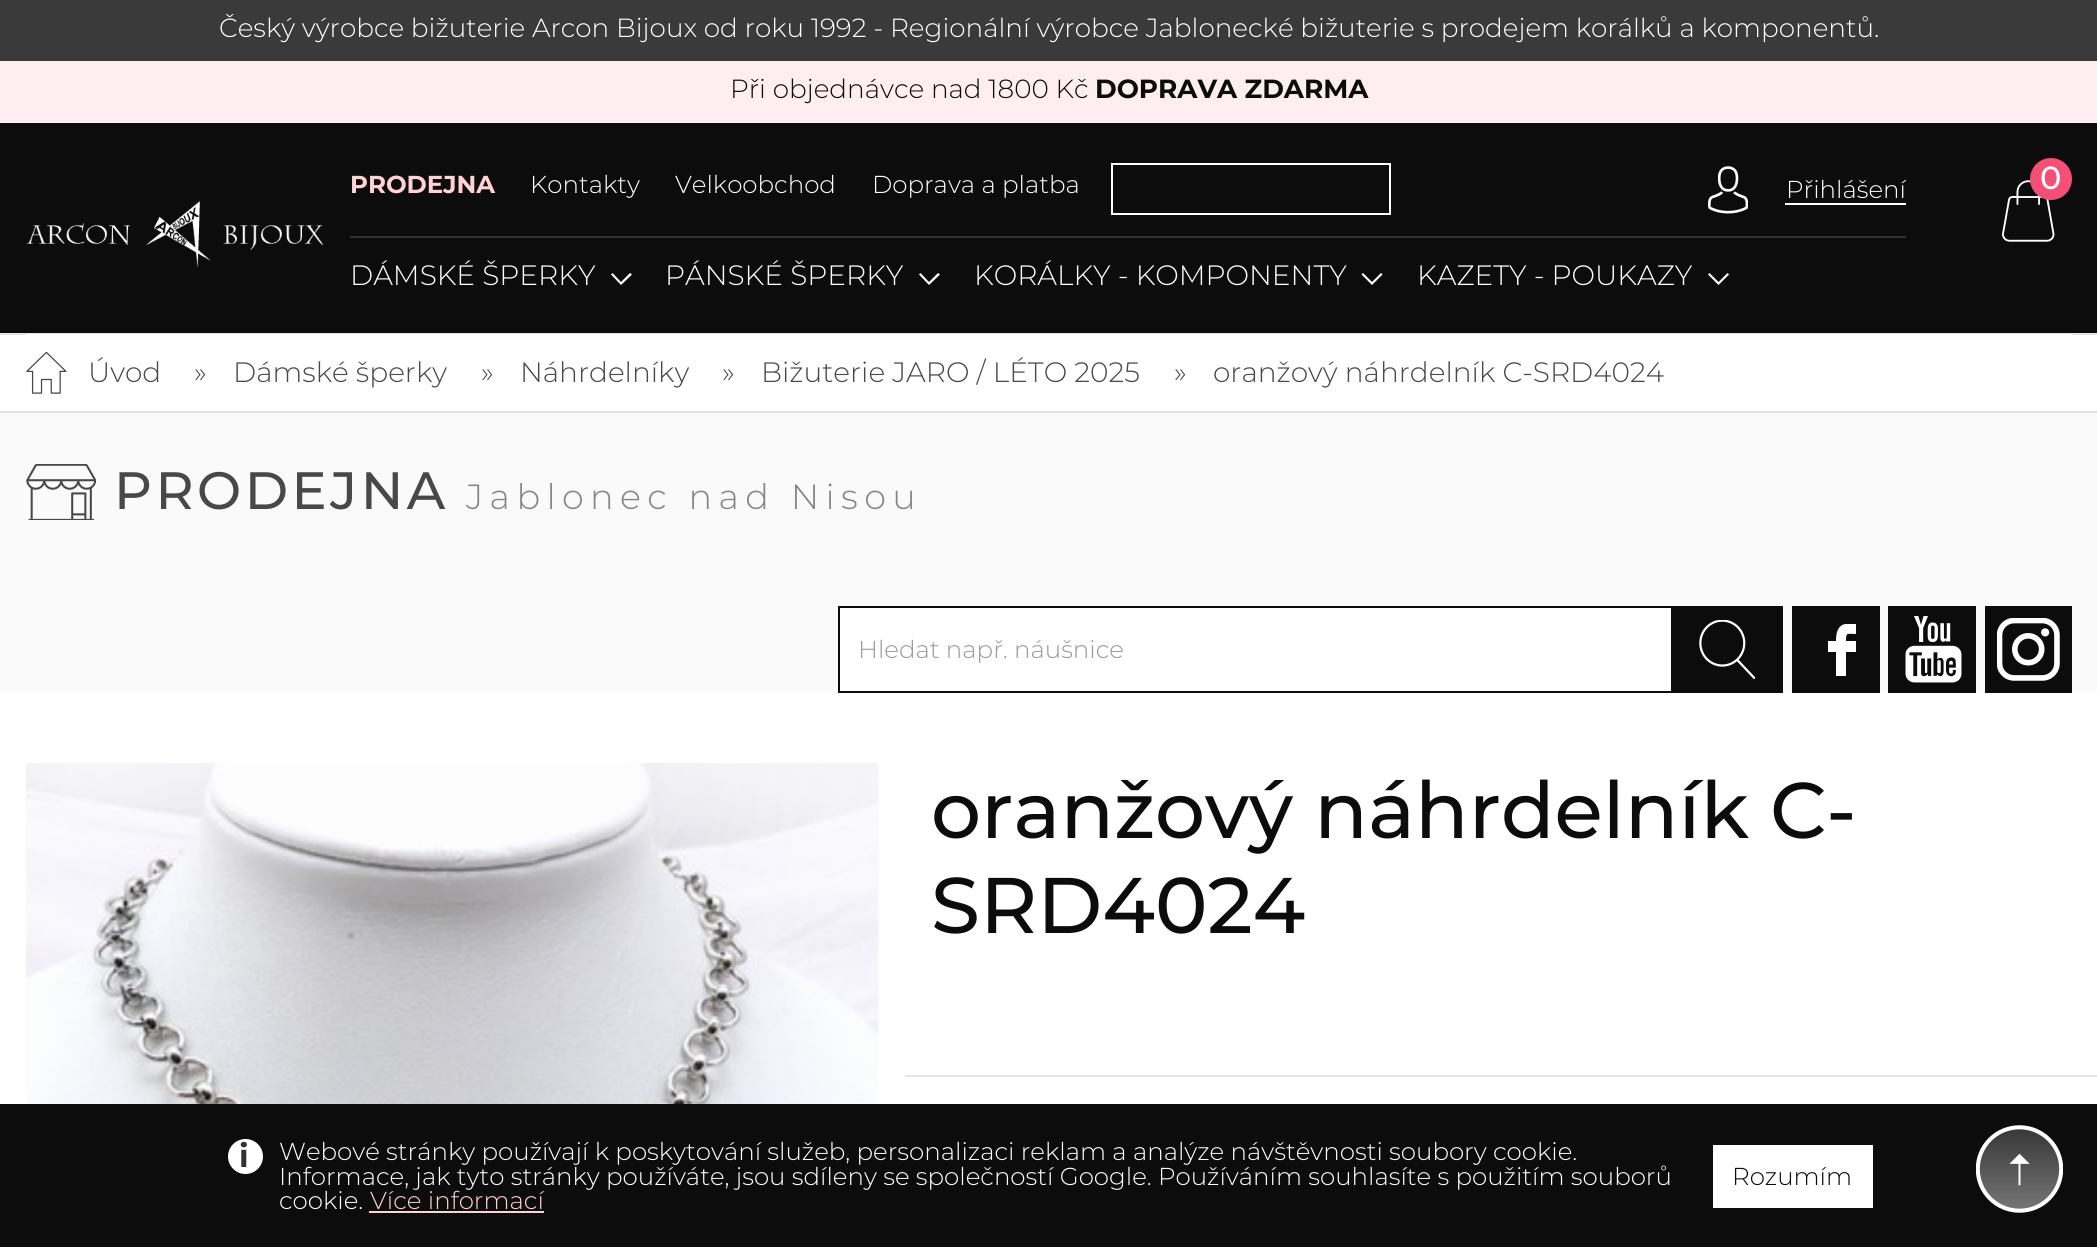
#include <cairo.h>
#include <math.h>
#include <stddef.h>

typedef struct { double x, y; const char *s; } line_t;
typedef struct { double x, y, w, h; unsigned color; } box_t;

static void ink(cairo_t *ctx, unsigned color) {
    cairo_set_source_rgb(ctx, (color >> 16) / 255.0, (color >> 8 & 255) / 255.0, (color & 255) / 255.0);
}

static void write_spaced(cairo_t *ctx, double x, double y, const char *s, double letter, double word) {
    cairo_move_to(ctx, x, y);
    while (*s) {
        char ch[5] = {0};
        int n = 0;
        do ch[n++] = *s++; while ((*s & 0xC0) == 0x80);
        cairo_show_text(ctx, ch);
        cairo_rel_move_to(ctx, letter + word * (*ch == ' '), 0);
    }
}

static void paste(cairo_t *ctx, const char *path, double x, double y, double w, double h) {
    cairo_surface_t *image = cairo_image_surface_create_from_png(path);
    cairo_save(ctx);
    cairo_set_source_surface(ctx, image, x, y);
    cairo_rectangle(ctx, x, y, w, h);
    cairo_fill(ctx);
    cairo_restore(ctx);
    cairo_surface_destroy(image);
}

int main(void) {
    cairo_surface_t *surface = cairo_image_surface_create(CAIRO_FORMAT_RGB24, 2097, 1247);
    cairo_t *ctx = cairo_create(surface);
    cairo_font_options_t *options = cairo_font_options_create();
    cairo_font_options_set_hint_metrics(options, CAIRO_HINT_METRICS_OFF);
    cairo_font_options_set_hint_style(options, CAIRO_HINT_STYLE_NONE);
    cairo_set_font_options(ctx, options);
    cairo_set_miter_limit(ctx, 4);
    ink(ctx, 0xFFFFFF);
    cairo_paint(ctx);
    ink(ctx, 0x3A3A3A);
    cairo_rectangle(ctx, 0, 0, 2097, 61);
    cairo_fill(ctx);
    cairo_select_font_face(ctx, "Montserrat Light", CAIRO_FONT_SLANT_NORMAL, CAIRO_FONT_WEIGHT_NORMAL);
    cairo_set_font_size(ctx, 26.25);
    ink(ctx, 0xFFFFFF);
    cairo_move_to(ctx, 219, 37);
    cairo_show_text(ctx, "Český výrobce bižuterie Arcon Bijoux od roku 1992 - Regionální výrobce Jablonecké bižuterie s prodejem korálků a komponentů.");
    ink(ctx, 0xFFEEEF);
    cairo_rectangle(ctx, 0, 61, 2097, 62);
    cairo_fill(ctx);
    ink(ctx, 0x0C0C0C);
    cairo_move_to(ctx, 730, 98);
    cairo_show_text(ctx, "Při objednávce nad 1800 Kč");
    cairo_select_font_face(ctx, "Montserrat", CAIRO_FONT_SLANT_NORMAL, CAIRO_FONT_WEIGHT_BOLD);
    cairo_move_to(ctx, 1095, 98);
    cairo_show_text(ctx, "DOPRAVA ZDARMA");
    cairo_rectangle(ctx, 0, 123, 2097, 210);
    cairo_fill(ctx);
    ink(ctx, 0x323232);
    cairo_rectangle(ctx, 350, 236, 1556, 2);
    cairo_fill(ctx);
    cairo_set_font_size(ctx, 24.5);
    ink(ctx, 0xFFD2D5);
    cairo_move_to(ctx, 350, 193);
    cairo_show_text(ctx, "PRODEJNA");
    cairo_select_font_face(ctx, "Montserrat Light", CAIRO_FONT_SLANT_NORMAL, CAIRO_FONT_WEIGHT_NORMAL);
    ink(ctx, 0xFFFFFF);
    {
        static const line_t items[] = {
            {530, 193, "Kontakty"},
            {675, 193, "Velkoobchod"},
            {872, 193, "Doprava a platba"},
        };
        for (size_t i = 0; i < sizeof items / sizeof *items; i++) {
            cairo_move_to(ctx, items[i].x, items[i].y);
            cairo_show_text(ctx, items[i].s);
        }
    }
    cairo_rectangle(ctx, 1112, 164, 278, 50);
    cairo_stroke(ctx);
    paste(ctx, "media/1.png", 1708, 166, 40, 48);
    cairo_move_to(ctx, 1786, 198);
    cairo_show_text(ctx, "Přihlášení");
    cairo_rectangle(ctx, 1785, 203, 121, 2);
    cairo_fill(ctx);
    paste(ctx, "media/2.png", 2002, 180, 53, 62);
    ink(ctx, 0xF44F75);
    cairo_arc(ctx, 2051, 179, 21, 0, 2 * M_PI);
    cairo_fill(ctx);
    cairo_select_font_face(ctx, "Montserrat Medium", CAIRO_FONT_SLANT_NORMAL, CAIRO_FONT_WEIGHT_NORMAL);
    cairo_set_font_size(ctx, 32);
    ink(ctx, 0xFFFFFF);
    cairo_move_to(ctx, 2040, 189);
    cairo_show_text(ctx, "0");
    paste(ctx, "media/3.png", 26, 201, 298, 67);
    cairo_select_font_face(ctx, "Montserrat Light", CAIRO_FONT_SLANT_NORMAL, CAIRO_FONT_WEIGHT_NORMAL);
    cairo_set_font_size(ctx, 28);
    cairo_move_to(ctx, 350, 285);
    cairo_show_text(ctx, "DÁMSKÉ ŠPERKY");
    cairo_new_path(ctx);
    cairo_move_to(ctx, 611, 274.5);
    cairo_line_to(ctx, 612.5, 273);
    cairo_line_to(ctx, 621, 282);
    cairo_line_to(ctx, 630, 273);
    cairo_line_to(ctx, 632, 274.5);
    cairo_line_to(ctx, 621, 285);
    cairo_close_path(ctx);
    cairo_fill(ctx);
    cairo_move_to(ctx, 665, 285);
    cairo_show_text(ctx, "PÁNSKÉ ŠPERKY");
    cairo_new_path(ctx);
    cairo_move_to(ctx, 919, 274.5);
    cairo_line_to(ctx, 920.5, 273);
    cairo_line_to(ctx, 929, 282);
    cairo_line_to(ctx, 938, 273);
    cairo_line_to(ctx, 940, 274.5);
    cairo_line_to(ctx, 929, 285);
    cairo_close_path(ctx);
    cairo_fill(ctx);
    cairo_move_to(ctx, 974, 285);
    cairo_show_text(ctx, "KORÁLKY - KOMPONENTY");
    cairo_new_path(ctx);
    cairo_move_to(ctx, 1361.5, 274.5);
    cairo_line_to(ctx, 1363, 273);
    cairo_line_to(ctx, 1372, 282);
    cairo_line_to(ctx, 1381, 273);
    cairo_line_to(ctx, 1382.5, 274.5);
    cairo_line_to(ctx, 1372, 285);
    cairo_close_path(ctx);
    cairo_fill(ctx);
    cairo_move_to(ctx, 1417, 285);
    cairo_show_text(ctx, "KAZETY - POUKAZY");
    cairo_new_path(ctx);
    cairo_move_to(ctx, 1708, 274.5);
    cairo_line_to(ctx, 1709.5, 273);
    cairo_line_to(ctx, 1718.5, 282);
    cairo_line_to(ctx, 1727.5, 273);
    cairo_line_to(ctx, 1729, 274.5);
    cairo_line_to(ctx, 1718.5, 285);
    cairo_close_path(ctx);
    cairo_fill(ctx);
    {
        static const box_t items[] = {
            {0, 333, 2097, 2, 0xE4E4E4},
            {0, 411, 2097, 2, 0xE4E4E4},
            {26, 334, 2046, 1, 0xFFFFFF},
        };
        for (size_t i = 0; i < sizeof items / sizeof *items; i++) {
            ink(ctx, items[i].color);
            cairo_rectangle(ctx, items[i].x, items[i].y, items[i].w, items[i].h);
            cairo_fill(ctx);
        }
    }
    paste(ctx, "media/4.png", 26, 352, 41, 42);
    ink(ctx, 0x484848);
    {
        static const line_t items[] = {
            {88, 382, "Úvod"},
            {194, 382, "»"},
            {233, 382, "Dámské šperky"},
            {481, 382, "»"},
            {520, 382, "Náhrdelníky"},
            {722, 382, "»"},
            {761, 382, "Bižuterie JARO / LÉTO 2025"},
            {1174, 382, "»"},
            {1213, 382, "oranžový náhrdelník C-SRD4024"},
        };
        for (size_t i = 0; i < sizeof items / sizeof *items; i++) {
            cairo_move_to(ctx, items[i].x, items[i].y);
            cairo_show_text(ctx, items[i].s);
        }
    }
    ink(ctx, 0xFAFAFA);
    cairo_rectangle(ctx, 0, 413, 2097, 280);
    cairo_fill(ctx);
    paste(ctx, "media/5.png", 26, 464, 70, 56);
    cairo_select_font_face(ctx, "Montserrat Medium", CAIRO_FONT_SLANT_NORMAL, CAIRO_FONT_WEIGHT_NORMAL);
    cairo_set_font_size(ctx, 52.5);
    ink(ctx, 0x484848);
    write_spaced(ctx, 114, 509, "PRODEJNA", 3.5, 0);
    cairo_select_font_face(ctx, "Montserrat Light", CAIRO_FONT_SLANT_NORMAL, CAIRO_FONT_WEIGHT_NORMAL);
    cairo_set_font_size(ctx, 35);
    ink(ctx, 0x858585);
    write_spaced(ctx, 466, 509, "Jablonec nad Nisou", 6.4, 0);
    ink(ctx, 0xFFFFFF);
    cairo_rectangle(ctx, 839, 607, 833, 85);
    cairo_fill_preserve(ctx);
    ink(ctx, 0x0C0C0C);
    cairo_stroke(ctx);
    cairo_set_font_size(ctx, 24.5);
    ink(ctx, 0x999999);
    cairo_move_to(ctx, 858, 658);
    cairo_show_text(ctx, "Hledat např. náušnice");
    ink(ctx, 0x0C0C0C);
    cairo_rectangle(ctx, 1673, 606, 110, 87);
    cairo_fill(ctx);
    paste(ctx, "media/6.png", 1699, 620, 56, 59);
    cairo_rectangle(ctx, 1792, 606, 88, 87);
    cairo_fill(ctx);
    ink(ctx, 0xFFFFFF);
    cairo_new_path(ctx);
    cairo_move_to(ctx, 1846, 676);
    cairo_line_to(ctx, 1846, 652);
    cairo_line_to(ctx, 1856, 652);
    cairo_line_to(ctx, 1856, 641);
    cairo_line_to(ctx, 1846, 641);
    cairo_curve_to(ctx, 1846, 632, 1847, 634, 1856, 634);
    cairo_line_to(ctx, 1856, 624);
    cairo_line_to(ctx, 1845, 624);
    cairo_curve_to(ctx, 1837, 626, 1836, 634, 1836, 641);
    cairo_line_to(ctx, 1828, 641);
    cairo_line_to(ctx, 1828, 652);
    cairo_line_to(ctx, 1836, 652);
    cairo_line_to(ctx, 1836, 676);
    cairo_close_path(ctx);
    cairo_fill(ctx);
    ink(ctx, 0x0C0C0C);
    cairo_rectangle(ctx, 1888, 606, 88, 87);
    cairo_fill(ctx);
    paste(ctx, "media/7.png", 1905, 616, 57, 67);
    cairo_rectangle(ctx, 1985, 606, 87, 87);
    cairo_fill(ctx);
    paste(ctx, "media/8.png", 1997, 618, 63, 63);
    paste(ctx, "media/9.png", 26, 763, 853, 341);
    cairo_select_font_face(ctx, "Montserrat Medium", CAIRO_FONT_SLANT_NORMAL, CAIRO_FONT_WEIGHT_NORMAL);
    cairo_set_font_size(ctx, 78.75);
    cairo_move_to(ctx, 931, 838);
    cairo_show_text(ctx, "oranžový náhrdelník C-");
    cairo_move_to(ctx, 931, 933);
    cairo_show_text(ctx, "SRD4024");
    ink(ctx, 0xE4E4E4);
    cairo_rectangle(ctx, 905, 1075, 1192, 2);
    cairo_fill(ctx);
    ink(ctx, 0x0C0C0C);
    cairo_rectangle(ctx, 0, 1104, 2097, 143);
    cairo_fill(ctx);
    ink(ctx, 0xFFFFFF);
    cairo_arc(ctx, 245.5, 1156.5, 17.5, 0, 2 * M_PI);
    cairo_fill(ctx);
    cairo_select_font_face(ctx, "Montserrat", CAIRO_FONT_SLANT_NORMAL, CAIRO_FONT_WEIGHT_BOLD);
    cairo_set_font_size(ctx, 32);
    ink(ctx, 0x323232);
    cairo_move_to(ctx, 239, 1167);
    cairo_show_text(ctx, "i");
    cairo_select_font_face(ctx, "Montserrat Light", CAIRO_FONT_SLANT_NORMAL, CAIRO_FONT_WEIGHT_NORMAL);
    cairo_set_font_size(ctx, 24.5);
    ink(ctx, 0xFFFFFF);
    cairo_move_to(ctx, 279, 1160);
    cairo_show_text(ctx, "Webové stránky používají k poskytování služeb, personalizaci reklam a analýze návštěvnosti soubory cookie.");
    cairo_move_to(ctx, 279, 1185);
    cairo_show_text(ctx, "Informace, jak tyto stránky používáte, jsou sdíleny se společností Google. Používáním souhlasíte s použitím souborů");
    cairo_rectangle(ctx, 1713, 1145, 160, 63);
    cairo_fill(ctx);
    ink(ctx, 0x0C0C0C);
    cairo_move_to(ctx, 1732, 1185);
    cairo_show_text(ctx, "Rozumím");
    ink(ctx, 0xFFFFFF);
    cairo_move_to(ctx, 279, 1209);
    cairo_show_text(ctx, "cookie.");
    ink(ctx, 0xFFD2D5);
    cairo_move_to(ctx, 370, 1209);
    cairo_show_text(ctx, "Více informací");
    cairo_rectangle(ctx, 369, 1211, 175, 2);
    cairo_fill(ctx);
    paste(ctx, "media/10.png", 1976, 1125, 87, 88);
    cairo_surface_write_to_png(surface, "image.png");
    cairo_font_options_destroy(options);
    cairo_destroy(ctx);
    cairo_surface_destroy(surface);
    return 0;
}
